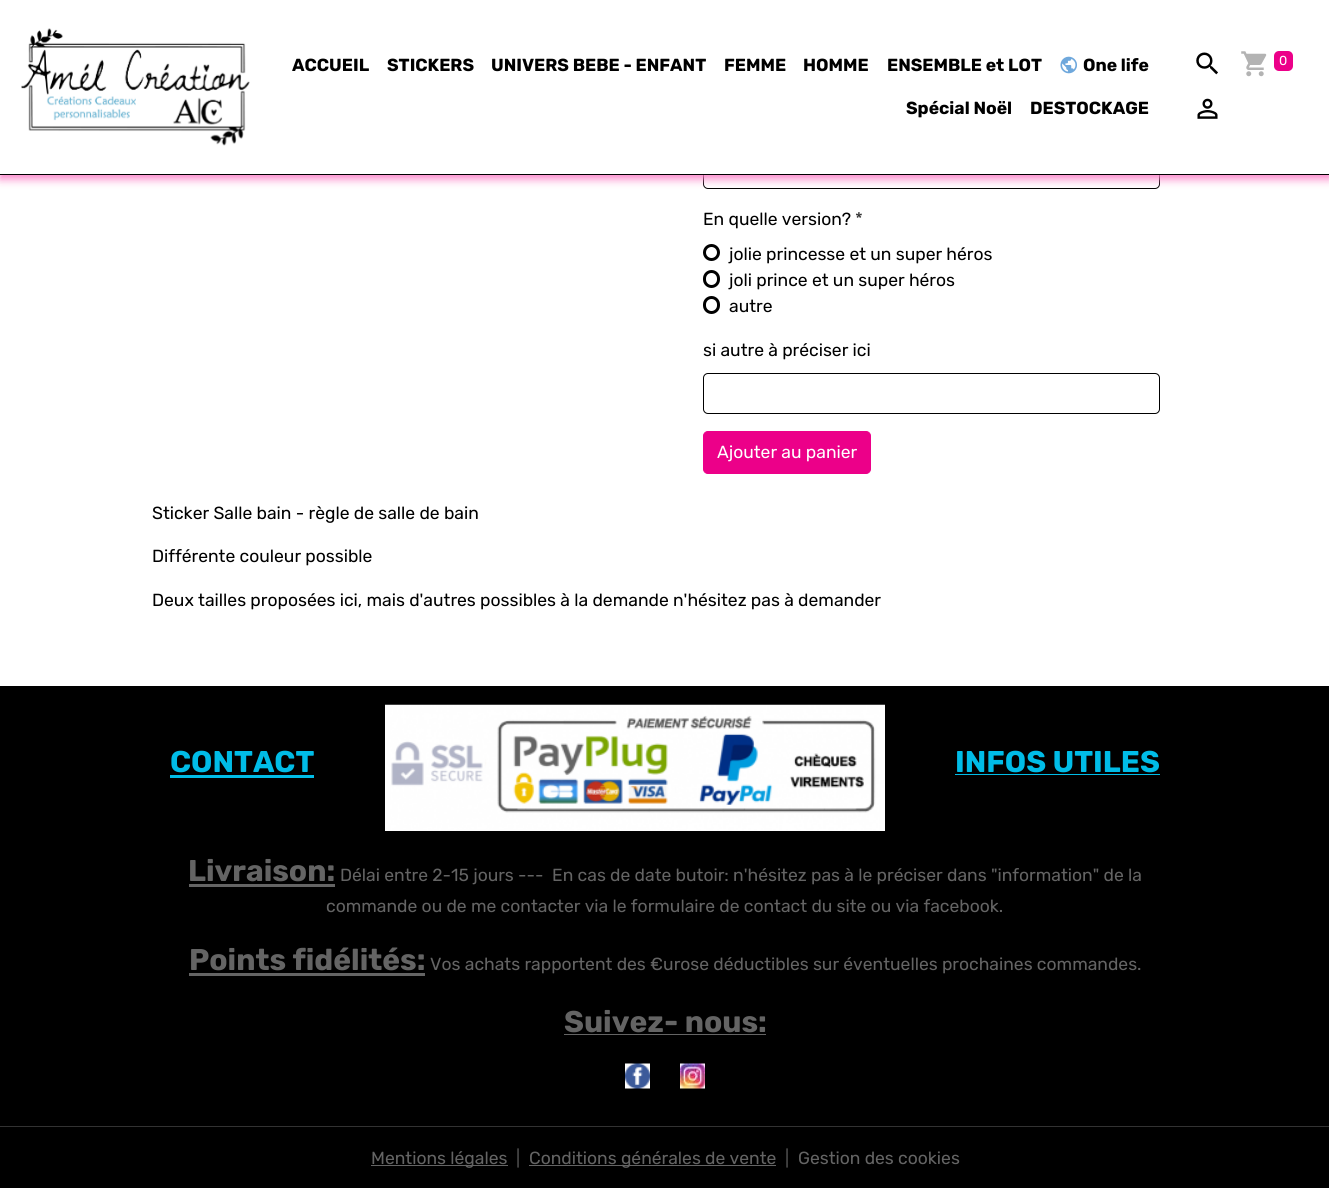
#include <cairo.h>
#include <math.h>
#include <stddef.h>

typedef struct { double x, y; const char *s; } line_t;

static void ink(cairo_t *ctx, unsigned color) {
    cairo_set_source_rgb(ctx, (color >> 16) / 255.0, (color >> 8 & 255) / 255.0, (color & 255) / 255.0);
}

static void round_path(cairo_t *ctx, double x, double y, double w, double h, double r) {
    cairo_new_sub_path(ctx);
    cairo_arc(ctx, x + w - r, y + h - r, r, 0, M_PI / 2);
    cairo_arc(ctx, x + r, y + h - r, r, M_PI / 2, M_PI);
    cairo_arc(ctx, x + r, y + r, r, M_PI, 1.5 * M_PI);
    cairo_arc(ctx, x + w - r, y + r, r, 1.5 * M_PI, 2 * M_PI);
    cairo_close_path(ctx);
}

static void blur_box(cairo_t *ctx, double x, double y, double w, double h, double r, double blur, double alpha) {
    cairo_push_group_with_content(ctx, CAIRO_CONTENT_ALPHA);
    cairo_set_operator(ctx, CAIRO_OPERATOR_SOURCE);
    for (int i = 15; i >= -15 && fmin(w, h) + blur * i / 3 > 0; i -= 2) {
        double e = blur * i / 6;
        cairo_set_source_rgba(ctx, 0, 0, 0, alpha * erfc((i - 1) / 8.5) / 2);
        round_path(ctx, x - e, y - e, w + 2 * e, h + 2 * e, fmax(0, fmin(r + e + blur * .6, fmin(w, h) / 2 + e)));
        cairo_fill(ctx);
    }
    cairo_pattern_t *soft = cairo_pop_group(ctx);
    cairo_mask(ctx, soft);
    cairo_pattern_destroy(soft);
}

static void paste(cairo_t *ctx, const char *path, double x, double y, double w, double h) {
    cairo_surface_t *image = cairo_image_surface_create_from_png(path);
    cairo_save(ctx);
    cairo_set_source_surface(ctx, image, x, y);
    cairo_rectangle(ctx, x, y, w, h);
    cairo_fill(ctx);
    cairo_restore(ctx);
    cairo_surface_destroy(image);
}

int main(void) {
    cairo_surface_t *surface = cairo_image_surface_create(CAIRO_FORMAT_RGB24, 1329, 1188);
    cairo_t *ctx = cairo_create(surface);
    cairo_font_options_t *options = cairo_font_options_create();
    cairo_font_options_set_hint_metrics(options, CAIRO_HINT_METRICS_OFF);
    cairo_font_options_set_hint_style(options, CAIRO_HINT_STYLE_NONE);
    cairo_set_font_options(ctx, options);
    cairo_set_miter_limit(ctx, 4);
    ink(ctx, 0xFFFFFF);
    cairo_paint(ctx);
    round_path(ctx, 703.5, 146.5, 456, 42, 4.5);
    ink(ctx, 0x000000);
    cairo_set_line_width(ctx, 1);
    cairo_stroke(ctx);
    ink(ctx, 0xFB80C7);
    blur_box(ctx, 0, 4, 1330, 175, 0, 4.5, 1);
    ink(ctx, 0xFFFFFF);
    cairo_rectangle(ctx, 0, 0, 1329, 174);
    cairo_fill(ctx);
    ink(ctx, 0x000000);
    cairo_rectangle(ctx, 0, 174, 1329, 1);
    cairo_fill(ctx);
    paste(ctx, "media/1.png", 21, 28, 229, 118);
    cairo_select_font_face(ctx, "Rubik", CAIRO_FONT_SLANT_NORMAL, CAIRO_FONT_WEIGHT_BOLD);
    cairo_set_font_size(ctx, 17.5);
    {
        static const line_t items[] = {
            {292, 71, "ACCUEIL"},
            {387, 71, "STICKERS"},
            {491, 71, "UNIVERS BEBE - ENFANT"},
            {724, 71, "FEMME"},
            {803, 71, "HOMME"},
            {887, 71, "ENSEMBLE et LOT"},
        };
        for (size_t i = 0; i < sizeof items / sizeof *items; i++) {
            cairo_move_to(ctx, items[i].x, items[i].y);
            cairo_show_text(ctx, items[i].s);
        }
    }
    paste(ctx, "media/2.png", 1060, 56, 17, 18);
    {
        static const line_t items[] = {
            {1083, 71, "One life"},
            {906, 114, "Spécial Noël"},
            {1030, 114, "DESTOCKAGE"},
        };
        for (size_t i = 0; i < sizeof items / sizeof *items; i++) {
            cairo_move_to(ctx, items[i].x, items[i].y);
            cairo_show_text(ctx, items[i].s);
        }
    }
    paste(ctx, "media/3.png", 1196, 52, 22, 23);
    paste(ctx, "media/4.png", 1241, 51, 26, 26);
    ink(ctx, 0xEC0089);
    round_path(ctx, 1274, 51, 19, 20, 5);
    cairo_fill(ctx);
    cairo_select_font_face(ctx, "Rubik", CAIRO_FONT_SLANT_NORMAL, CAIRO_FONT_WEIGHT_NORMAL);
    cairo_set_font_size(ctx, 13);
    ink(ctx, 0xFFFFFF);
    cairo_move_to(ctx, 1279, 65);
    cairo_show_text(ctx, "0");
    paste(ctx, "media/5.png", 1197, 98, 21, 21);
    cairo_set_font_size(ctx, 17.5);
    ink(ctx, 0x000000);
    cairo_move_to(ctx, 703, 225);
    cairo_show_text(ctx, "En quelle version?");
    ink(ctx, 0x333333);
    cairo_move_to(ctx, 855, 225);
    cairo_show_text(ctx, "*");
    cairo_new_path(ctx);
    cairo_arc(ctx, 711.5, 252.5, 7, 0, 2 * M_PI);
    ink(ctx, 0x000000);
    cairo_set_line_width(ctx, 3);
    cairo_stroke(ctx);
    cairo_move_to(ctx, 729, 260);
    cairo_show_text(ctx, "jolie princesse et un super héros");
    round_path(ctx, 704.5, 271.5, 14, 15, 7);
    cairo_stroke(ctx);
    cairo_move_to(ctx, 729, 286);
    cairo_show_text(ctx, "joli prince et un super héros");
    round_path(ctx, 704.5, 297.5, 14, 15, 7);
    cairo_stroke(ctx);
    cairo_move_to(ctx, 729, 312);
    cairo_show_text(ctx, "autre");
    cairo_move_to(ctx, 703, 356);
    cairo_show_text(ctx, "si autre à préciser ici");
    round_path(ctx, 703.5, 373.5, 456, 40, 4.5);
    cairo_set_line_width(ctx, 1);
    cairo_stroke(ctx);
    ink(ctx, 0xEC0089);
    round_path(ctx, 703.5, 431.5, 167, 42, 4.5);
    cairo_fill_preserve(ctx);
    cairo_stroke(ctx);
    ink(ctx, 0xFFFFFF);
    cairo_move_to(ctx, 717, 458);
    cairo_show_text(ctx, "Ajouter au panier");
    ink(ctx, 0x000000);
    {
        static const line_t items[] = {
            {152, 519, "Sticker Salle bain - règle de salle de bain"},
            {152, 562, "Différente couleur possible"},
            {152, 606, "Deux tailles proposées ici, mais d'autres possibles à la demande n'hésitez pas à demander"},
        };
        for (size_t i = 0; i < sizeof items / sizeof *items; i++) {
            cairo_move_to(ctx, items[i].x, items[i].y);
            cairo_show_text(ctx, items[i].s);
        }
    }
    cairo_rectangle(ctx, 0, 686, 1329, 502);
    cairo_fill(ctx);
    cairo_select_font_face(ctx, "Rubik", CAIRO_FONT_SLANT_NORMAL, CAIRO_FONT_WEIGHT_BOLD);
    cairo_set_font_size(ctx, 30);
    ink(ctx, 0x00BCE7);
    cairo_move_to(ctx, 170, 772);
    cairo_show_text(ctx, "CONTACT");
    cairo_rectangle(ctx, 170, 775, 144, 3);
    cairo_fill(ctx);
    paste(ctx, "media/6.png", 385, 704, 500, 127);
    cairo_move_to(ctx, 955, 772);
    cairo_show_text(ctx, "INFOS UTILES");
    cairo_rectangle(ctx, 955, 774, 205, 1);
    cairo_fill(ctx);
    ink(ctx, 0x646464);
    cairo_move_to(ctx, 188, 881);
    cairo_show_text(ctx, "Livraison:");
    cairo_rectangle(ctx, 189, 884, 146, 3);
    cairo_fill(ctx);
    cairo_select_font_face(ctx, "Rubik", CAIRO_FONT_SLANT_NORMAL, CAIRO_FONT_WEIGHT_NORMAL);
    cairo_set_font_size(ctx, 17.5);
    cairo_move_to(ctx, 340, 881);
    cairo_show_text(ctx, "Délai entre 2-15 jours ---  En cas de date butoir: n'hésitez pas à le préciser dans \"information\" de la");
    cairo_move_to(ctx, 326, 912);
    cairo_show_text(ctx, "commande ou de me contacter via le formulaire de contact du site ou via facebook.");
    cairo_select_font_face(ctx, "Rubik", CAIRO_FONT_SLANT_NORMAL, CAIRO_FONT_WEIGHT_BOLD);
    cairo_set_font_size(ctx, 30);
    cairo_move_to(ctx, 189, 970);
    cairo_show_text(ctx, "Points fidélités:");
    cairo_rectangle(ctx, 189, 973, 236, 3);
    cairo_fill(ctx);
    cairo_select_font_face(ctx, "Rubik", CAIRO_FONT_SLANT_NORMAL, CAIRO_FONT_WEIGHT_NORMAL);
    cairo_set_font_size(ctx, 17.5);
    cairo_move_to(ctx, 430, 970);
    cairo_show_text(ctx, "Vos achats rapportent des €urose déductibles sur éventuelles prochaines commandes.");
    cairo_select_font_face(ctx, "Rubik", CAIRO_FONT_SLANT_NORMAL, CAIRO_FONT_WEIGHT_BOLD);
    cairo_set_font_size(ctx, 30);
    cairo_move_to(ctx, 564, 1032);
    cairo_show_text(ctx, "Suivez- nous:");
    cairo_rectangle(ctx, 564, 1034, 202, 1);
    cairo_fill(ctx);
    paste(ctx, "media/7.png", 625, 1063, 25, 26);
    paste(ctx, "media/8.png", 680, 1063, 25, 26);
    ink(ctx, 0x323232);
    cairo_rectangle(ctx, 0, 1126, 1329, 1);
    cairo_fill(ctx);
    ink(ctx, 0x646464);
    cairo_rectangle(ctx, 371, 1165, 137, 1);
    cairo_fill(ctx);
    cairo_select_font_face(ctx, "Rubik", CAIRO_FONT_SLANT_NORMAL, CAIRO_FONT_WEIGHT_NORMAL);
    cairo_set_font_size(ctx, 17.5);
    cairo_move_to(ctx, 371, 1164);
    cairo_show_text(ctx, "Mentions légales");
    ink(ctx, 0x505050);
    cairo_move_to(ctx, 516, 1164);
    cairo_show_text(ctx, "|");
    ink(ctx, 0x646464);
    cairo_rectangle(ctx, 529, 1165, 247, 1);
    cairo_fill(ctx);
    cairo_move_to(ctx, 529, 1164);
    cairo_show_text(ctx, "Conditions générales de vente");
    ink(ctx, 0x505050);
    cairo_move_to(ctx, 785, 1164);
    cairo_show_text(ctx, "|");
    ink(ctx, 0x646464);
    cairo_move_to(ctx, 798, 1164);
    cairo_show_text(ctx, "Gestion des cookies");
    cairo_surface_write_to_png(surface, "image.png");
    cairo_font_options_destroy(options);
    cairo_destroy(ctx);
    cairo_surface_destroy(surface);
    return 0;
}
